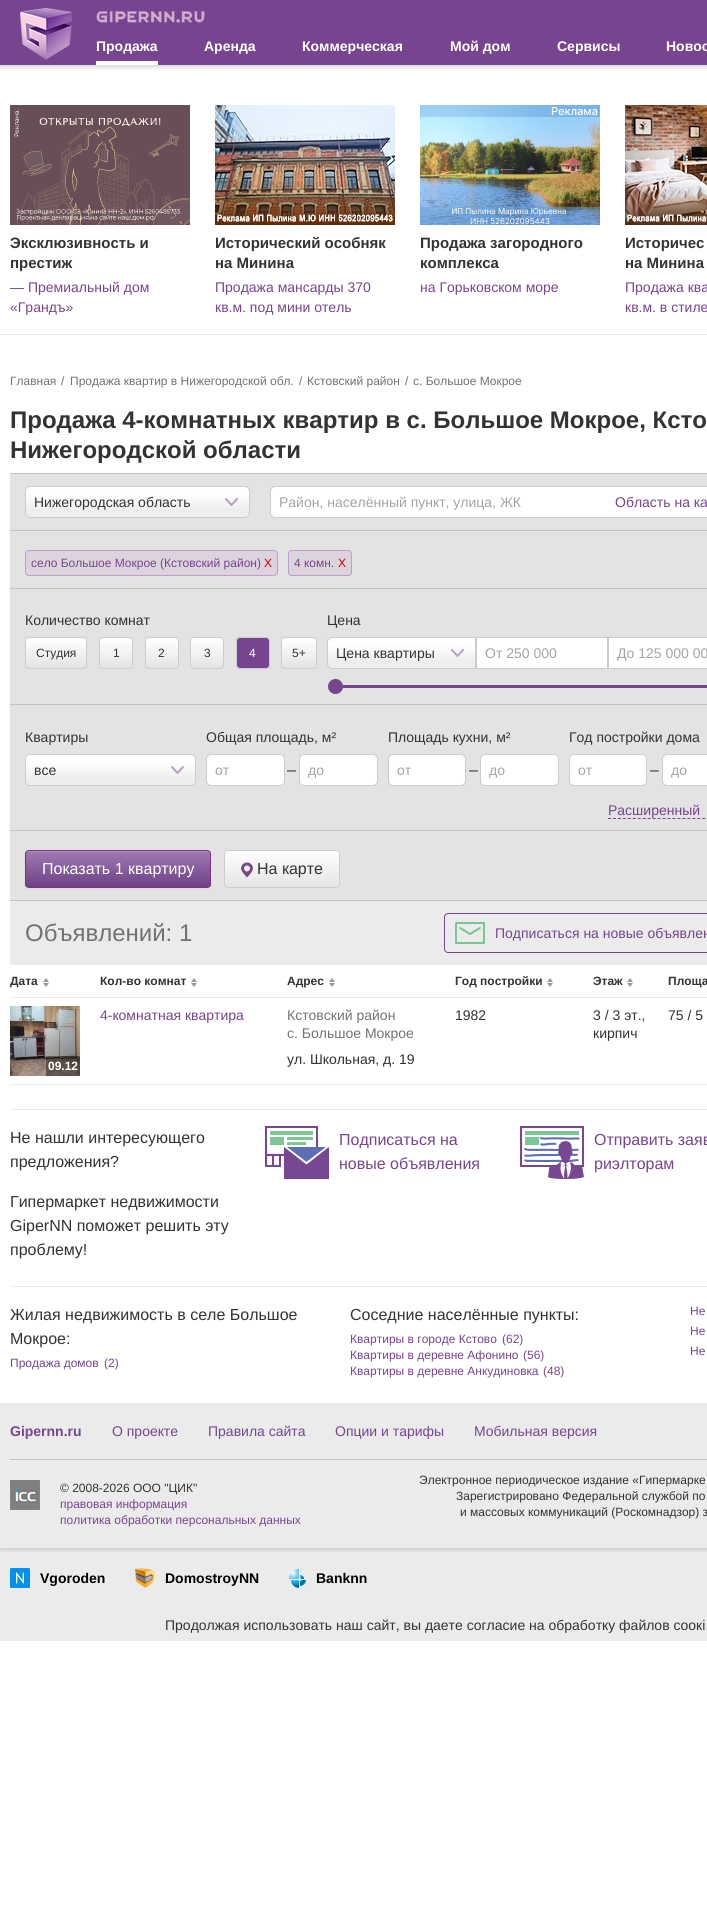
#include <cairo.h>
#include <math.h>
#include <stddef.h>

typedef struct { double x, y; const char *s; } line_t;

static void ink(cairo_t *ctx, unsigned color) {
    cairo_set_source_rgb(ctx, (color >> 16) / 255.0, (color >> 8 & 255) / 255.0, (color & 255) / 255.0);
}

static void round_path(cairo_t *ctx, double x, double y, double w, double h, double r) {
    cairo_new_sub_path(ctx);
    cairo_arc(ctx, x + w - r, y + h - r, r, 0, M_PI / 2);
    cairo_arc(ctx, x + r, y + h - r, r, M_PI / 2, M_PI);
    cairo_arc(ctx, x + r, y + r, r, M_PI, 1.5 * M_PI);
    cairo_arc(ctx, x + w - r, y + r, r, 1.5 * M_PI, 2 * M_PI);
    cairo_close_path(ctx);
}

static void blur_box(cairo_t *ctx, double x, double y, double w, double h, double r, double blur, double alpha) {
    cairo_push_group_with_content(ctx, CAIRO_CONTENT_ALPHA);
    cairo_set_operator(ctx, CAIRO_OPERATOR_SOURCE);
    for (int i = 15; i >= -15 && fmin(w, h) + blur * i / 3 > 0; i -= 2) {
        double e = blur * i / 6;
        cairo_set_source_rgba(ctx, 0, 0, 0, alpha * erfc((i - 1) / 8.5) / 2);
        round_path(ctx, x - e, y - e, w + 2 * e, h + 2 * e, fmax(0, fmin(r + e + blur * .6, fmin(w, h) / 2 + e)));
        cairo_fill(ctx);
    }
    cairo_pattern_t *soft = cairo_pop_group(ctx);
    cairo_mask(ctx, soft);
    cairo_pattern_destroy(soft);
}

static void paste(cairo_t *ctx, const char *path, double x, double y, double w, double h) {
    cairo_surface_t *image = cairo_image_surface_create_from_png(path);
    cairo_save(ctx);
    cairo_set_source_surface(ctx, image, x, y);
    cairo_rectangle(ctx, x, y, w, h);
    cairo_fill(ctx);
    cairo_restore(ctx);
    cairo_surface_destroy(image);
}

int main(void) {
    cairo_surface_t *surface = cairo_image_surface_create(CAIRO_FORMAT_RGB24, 707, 1917);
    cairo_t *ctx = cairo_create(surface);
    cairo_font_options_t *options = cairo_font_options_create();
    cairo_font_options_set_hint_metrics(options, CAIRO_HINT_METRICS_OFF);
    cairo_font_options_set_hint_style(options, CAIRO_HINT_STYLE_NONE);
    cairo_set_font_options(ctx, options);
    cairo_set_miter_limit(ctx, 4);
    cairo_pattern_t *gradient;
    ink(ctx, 0xFFFFFF);
    cairo_paint(ctx);
    ink(ctx, 0x010101);
    blur_box(ctx, -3, -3, 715, 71, 0, 1.5, 0.13);
    ink(ctx, 0x77458F);
    cairo_rectangle(ctx, 0, 0, 707, 65);
    cairo_fill(ctx);
    paste(ctx, "media/1.png", 20, 8, 52, 52);
    paste(ctx, "media/2.png", 96, 11, 109, 12);
    ink(ctx, 0xFFFFFF);
    cairo_rectangle(ctx, 96, 61, 62, 4);
    cairo_fill(ctx);
    cairo_select_font_face(ctx, "Liberation Sans", CAIRO_FONT_SLANT_NORMAL, CAIRO_FONT_WEIGHT_BOLD);
    cairo_set_font_size(ctx, 14);
    {
        static const line_t items[] = {
            {96, 51, "Продажа"},
            {204, 51, "Аренда"},
            {302, 51, "Коммерческая"},
            {450, 51, "Мой дом"},
            {557, 51, "Сервисы"},
            {666, 51, "Новос"},
        };
        for (size_t i = 0; i < sizeof items / sizeof *items; i++) {
            cairo_move_to(ctx, items[i].x, items[i].y);
            cairo_show_text(ctx, items[i].s);
        }
    }
    ink(ctx, 0xEBEBEB);
    cairo_rectangle(ctx, 0, 334, 707, 1);
    cairo_fill(ctx);
    paste(ctx, "media/3.png", 10, 105, 180, 120);
    cairo_set_font_size(ctx, 15);
    ink(ctx, 0x333333);
    cairo_move_to(ctx, 10, 248);
    cairo_show_text(ctx, "Эксклюзивность и");
    cairo_move_to(ctx, 10, 268);
    cairo_show_text(ctx, "престиж");
    cairo_select_font_face(ctx, "Liberation Sans", CAIRO_FONT_SLANT_NORMAL, CAIRO_FONT_WEIGHT_NORMAL);
    cairo_set_font_size(ctx, 14);
    ink(ctx, 0x77458F);
    cairo_move_to(ctx, 10, 292);
    cairo_show_text(ctx, "— Премиальный дом");
    cairo_move_to(ctx, 10, 312);
    cairo_show_text(ctx, "«Грандъ»");
    paste(ctx, "media/4.png", 215, 105, 180, 120);
    cairo_select_font_face(ctx, "Liberation Sans", CAIRO_FONT_SLANT_NORMAL, CAIRO_FONT_WEIGHT_BOLD);
    cairo_set_font_size(ctx, 15);
    ink(ctx, 0x333333);
    cairo_move_to(ctx, 215, 248);
    cairo_show_text(ctx, "Исторический особняк");
    cairo_move_to(ctx, 215, 268);
    cairo_show_text(ctx, "на Минина");
    cairo_select_font_face(ctx, "Liberation Sans", CAIRO_FONT_SLANT_NORMAL, CAIRO_FONT_WEIGHT_NORMAL);
    cairo_set_font_size(ctx, 14);
    ink(ctx, 0x77458F);
    cairo_move_to(ctx, 215, 292);
    cairo_show_text(ctx, "Продажа мансарды 370");
    cairo_move_to(ctx, 215, 312);
    cairo_show_text(ctx, "кв.м. под мини отель");
    paste(ctx, "media/5.png", 420, 105, 180, 120);
    cairo_select_font_face(ctx, "Liberation Sans", CAIRO_FONT_SLANT_NORMAL, CAIRO_FONT_WEIGHT_BOLD);
    cairo_set_font_size(ctx, 15);
    ink(ctx, 0x333333);
    cairo_move_to(ctx, 420, 248);
    cairo_show_text(ctx, "Продажа загородного");
    cairo_move_to(ctx, 420, 268);
    cairo_show_text(ctx, "комплекса");
    cairo_select_font_face(ctx, "Liberation Sans", CAIRO_FONT_SLANT_NORMAL, CAIRO_FONT_WEIGHT_NORMAL);
    cairo_set_font_size(ctx, 14);
    ink(ctx, 0x77458F);
    cairo_move_to(ctx, 420, 292);
    cairo_show_text(ctx, "на Горьковском море");
    paste(ctx, "media/6.png", 625, 105, 82, 120);
    cairo_select_font_face(ctx, "Liberation Sans", CAIRO_FONT_SLANT_NORMAL, CAIRO_FONT_WEIGHT_BOLD);
    cairo_set_font_size(ctx, 15);
    ink(ctx, 0x333333);
    cairo_move_to(ctx, 625, 248);
    cairo_show_text(ctx, "Историчес");
    cairo_move_to(ctx, 625, 268);
    cairo_show_text(ctx, "на Минина");
    cairo_select_font_face(ctx, "Liberation Sans", CAIRO_FONT_SLANT_NORMAL, CAIRO_FONT_WEIGHT_NORMAL);
    cairo_set_font_size(ctx, 14);
    ink(ctx, 0x77458F);
    cairo_move_to(ctx, 625, 292);
    cairo_show_text(ctx, "Продажа ква");
    cairo_move_to(ctx, 625, 312);
    cairo_show_text(ctx, "кв.м. в стиле");
    cairo_set_font_size(ctx, 12);
    ink(ctx, 0x727272);
    {
        static const line_t items[] = {
            {10, 385, "Главная"},
            {61, 385, "/"},
            {70, 385, "Продажа квартир в Нижегородской обл."},
            {299, 385, "/"},
            {307, 385, "Кстовский район"},
            {405, 385, "/"},
            {413, 385, "с. Большое Мокрое"},
        };
        for (size_t i = 0; i < sizeof items / sizeof *items; i++) {
            cairo_move_to(ctx, items[i].x, items[i].y);
            cairo_show_text(ctx, items[i].s);
        }
    }
    cairo_select_font_face(ctx, "Liberation Sans", CAIRO_FONT_SLANT_NORMAL, CAIRO_FONT_WEIGHT_BOLD);
    cairo_set_font_size(ctx, 24);
    ink(ctx, 0x333333);
    cairo_move_to(ctx, 10, 428);
    cairo_show_text(ctx, "Продажа 4-комнатных квартир в с. Большое Мокрое, Ксто");
    cairo_move_to(ctx, 10, 458);
    cairo_show_text(ctx, "Нижегородской области");
    ink(ctx, 0xE3E3E3);
    cairo_rectangle(ctx, 10, 474, 697, 426);
    cairo_fill(ctx);
    ink(ctx, 0xC2C2C2);
    cairo_rectangle(ctx, 10, 473, 697, 1);
    cairo_fill(ctx);
    cairo_save(ctx);
    round_path(ctx, 25, 486, 225, 32, 5);
    cairo_clip(ctx);
    gradient = cairo_pattern_create_linear(138, 517, 138, 487);
    cairo_pattern_add_color_stop_rgba(gradient, 0.2, 0.933, 0.933, 0.933, 1);
    cairo_pattern_add_color_stop_rgba(gradient, 0.8, 1, 1, 1, 1);
    cairo_set_source(ctx, gradient);
    cairo_pattern_destroy(gradient);
    cairo_rectangle(ctx, 26, 487, 223, 30);
    cairo_fill(ctx);
    cairo_restore(ctx);
    cairo_new_path(ctx);
    cairo_move_to(ctx, 237, 499);
    cairo_line_to(ctx, 231.5, 505);
    cairo_line_to(ctx, 226, 499);
    ink(ctx, 0xB89EC4);
    cairo_set_line_cap(ctx, CAIRO_LINE_CAP_ROUND);
    cairo_set_line_join(ctx, CAIRO_LINE_JOIN_ROUND);
    cairo_stroke(ctx);
    round_path(ctx, 25.5, 486.5, 224, 31, 4.5);
    ink(ctx, 0xCCCCCC);
    cairo_set_line_width(ctx, 1);
    cairo_set_line_cap(ctx, CAIRO_LINE_CAP_BUTT);
    cairo_set_line_join(ctx, CAIRO_LINE_JOIN_MITER);
    cairo_stroke(ctx);
    cairo_select_font_face(ctx, "Liberation Sans", CAIRO_FONT_SLANT_NORMAL, CAIRO_FONT_WEIGHT_NORMAL);
    cairo_set_font_size(ctx, 14);
    ink(ctx, 0x333333);
    cairo_move_to(ctx, 34, 507);
    cairo_show_text(ctx, "Нижегородская область");
    ink(ctx, 0xFFFFFF);
    round_path(ctx, 270.5, 486.5, 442, 31, 4.5);
    cairo_fill_preserve(ctx);
    ink(ctx, 0xCCCCCC);
    cairo_stroke(ctx);
    ink(ctx, 0xA4A4A4);
    cairo_move_to(ctx, 279, 507);
    cairo_show_text(ctx, "Район, населённый пункт, улица, ЖК");
    ink(ctx, 0x77458F);
    cairo_move_to(ctx, 615, 507);
    cairo_show_text(ctx, "Область на ка");
    ink(ctx, 0xC2C2C2);
    cairo_rectangle(ctx, 10, 530, 697, 1);
    cairo_fill(ctx);
    ink(ctx, 0xDCD3DC);
    round_path(ctx, 25.5, 550.5, 252, 25, 3.5);
    cairo_fill_preserve(ctx);
    ink(ctx, 0xBF9DD0);
    cairo_stroke(ctx);
    cairo_set_font_size(ctx, 12);
    ink(ctx, 0x77458F);
    cairo_move_to(ctx, 31, 567);
    cairo_show_text(ctx, "село Большое Мокрое (Кстовский район)");
    ink(ctx, 0xCC0000);
    cairo_move_to(ctx, 264, 567);
    cairo_show_text(ctx, "X");
    ink(ctx, 0xDCD3DC);
    round_path(ctx, 288.5, 550.5, 63, 25, 3.5);
    cairo_fill_preserve(ctx);
    ink(ctx, 0xBF9DD0);
    cairo_stroke(ctx);
    ink(ctx, 0x77458F);
    cairo_move_to(ctx, 294, 567);
    cairo_show_text(ctx, "4 комн.");
    ink(ctx, 0xCC0000);
    cairo_move_to(ctx, 338, 567);
    cairo_show_text(ctx, "X");
    ink(ctx, 0xC2C2C2);
    cairo_rectangle(ctx, 10, 588, 697, 1);
    cairo_fill(ctx);
    cairo_set_font_size(ctx, 14);
    ink(ctx, 0x333333);
    cairo_move_to(ctx, 25, 625);
    cairo_show_text(ctx, "Количество комнат");
    cairo_save(ctx);
    round_path(ctx, 25, 637, 62, 32, 4);
    cairo_clip(ctx);
    gradient = cairo_pattern_create_linear(56, 638, 56, 668);
    cairo_pattern_add_color_stop_rgba(gradient, 0.04, 1, 1, 1, 1);
    cairo_pattern_add_color_stop_rgba(gradient, 1, 0.894, 0.894, 0.894, 1);
    cairo_set_source(ctx, gradient);
    cairo_pattern_destroy(gradient);
    cairo_rectangle(ctx, 25, 638, 62, 30);
    cairo_fill(ctx);
    cairo_restore(ctx);
    round_path(ctx, 25.5, 637.5, 61, 31, 3.5);
    ink(ctx, 0xCCCCCC);
    cairo_stroke(ctx);
    cairo_set_font_size(ctx, 12);
    ink(ctx, 0x333333);
    cairo_move_to(ctx, 36, 657);
    cairo_show_text(ctx, "Студия");
    cairo_save(ctx);
    round_path(ctx, 99, 637, 34, 32, 4);
    cairo_clip(ctx);
    gradient = cairo_pattern_create_linear(116, 638, 116, 668);
    cairo_pattern_add_color_stop_rgba(gradient, 0.04, 1, 1, 1, 1);
    cairo_pattern_add_color_stop_rgba(gradient, 1, 0.894, 0.894, 0.894, 1);
    cairo_set_source(ctx, gradient);
    cairo_pattern_destroy(gradient);
    cairo_rectangle(ctx, 99, 638, 34, 30);
    cairo_fill(ctx);
    cairo_restore(ctx);
    round_path(ctx, 99.5, 637.5, 33, 31, 3.5);
    ink(ctx, 0xCCCCCC);
    cairo_stroke(ctx);
    ink(ctx, 0x333333);
    cairo_move_to(ctx, 113, 657);
    cairo_show_text(ctx, "1");
    cairo_save(ctx);
    round_path(ctx, 145, 637, 34, 32, 4);
    cairo_clip(ctx);
    gradient = cairo_pattern_create_linear(162, 638, 162, 668);
    cairo_pattern_add_color_stop_rgba(gradient, 0.04, 1, 1, 1, 1);
    cairo_pattern_add_color_stop_rgba(gradient, 1, 0.894, 0.894, 0.894, 1);
    cairo_set_source(ctx, gradient);
    cairo_pattern_destroy(gradient);
    cairo_rectangle(ctx, 145, 638, 34, 30);
    cairo_fill(ctx);
    cairo_restore(ctx);
    round_path(ctx, 145.5, 637.5, 33, 31, 3.5);
    ink(ctx, 0xCCCCCC);
    cairo_stroke(ctx);
    ink(ctx, 0x333333);
    cairo_move_to(ctx, 158, 657);
    cairo_show_text(ctx, "2");
    cairo_save(ctx);
    round_path(ctx, 190, 637, 34, 32, 4);
    cairo_clip(ctx);
    gradient = cairo_pattern_create_linear(207, 638, 207, 668);
    cairo_pattern_add_color_stop_rgba(gradient, 0.04, 1, 1, 1, 1);
    cairo_pattern_add_color_stop_rgba(gradient, 1, 0.894, 0.894, 0.894, 1);
    cairo_set_source(ctx, gradient);
    cairo_pattern_destroy(gradient);
    cairo_rectangle(ctx, 190, 638, 34, 30);
    cairo_fill(ctx);
    cairo_restore(ctx);
    round_path(ctx, 190.5, 637.5, 33, 31, 3.5);
    ink(ctx, 0xCCCCCC);
    cairo_stroke(ctx);
    ink(ctx, 0x333333);
    cairo_move_to(ctx, 204, 657);
    cairo_show_text(ctx, "3");
    ink(ctx, 0x77458F);
    round_path(ctx, 236.5, 637.5, 33, 31, 3.5);
    cairo_fill_preserve(ctx);
    ink(ctx, 0xCCCCCC);
    cairo_stroke(ctx);
    ink(ctx, 0xFFFFFF);
    cairo_move_to(ctx, 249, 657);
    cairo_show_text(ctx, "4");
    cairo_save(ctx);
    round_path(ctx, 281, 637, 36, 32, 4);
    cairo_clip(ctx);
    gradient = cairo_pattern_create_linear(299, 638, 299, 668);
    cairo_pattern_add_color_stop_rgba(gradient, 0.04, 1, 1, 1, 1);
    cairo_pattern_add_color_stop_rgba(gradient, 1, 0.894, 0.894, 0.894, 1);
    cairo_set_source(ctx, gradient);
    cairo_pattern_destroy(gradient);
    cairo_rectangle(ctx, 281, 638, 36, 30);
    cairo_fill(ctx);
    cairo_restore(ctx);
    round_path(ctx, 281.5, 637.5, 35, 31, 3.5);
    ink(ctx, 0xCCCCCC);
    cairo_stroke(ctx);
    ink(ctx, 0x333333);
    cairo_move_to(ctx, 292, 657);
    cairo_show_text(ctx, "5+");
    cairo_set_font_size(ctx, 14);
    cairo_move_to(ctx, 327, 625);
    cairo_show_text(ctx, "Цена");
    gradient = cairo_pattern_create_linear(402, 668, 402, 638);
    cairo_pattern_add_color_stop_rgba(gradient, 0.2, 0.933, 0.933, 0.933, 1);
    cairo_pattern_add_color_stop_rgba(gradient, 0.8, 1, 1, 1, 1);
    cairo_set_source(ctx, gradient);
    cairo_pattern_destroy(gradient);
    cairo_rectangle(ctx, 328, 638, 147, 30);
    cairo_fill(ctx);
    cairo_new_path(ctx);
    cairo_move_to(ctx, 463, 650);
    cairo_line_to(ctx, 457.5, 656);
    cairo_line_to(ctx, 452, 650);
    ink(ctx, 0xB89EC4);
    cairo_set_line_width(ctx, 2);
    cairo_set_line_cap(ctx, CAIRO_LINE_CAP_ROUND);
    cairo_set_line_join(ctx, CAIRO_LINE_JOIN_ROUND);
    cairo_stroke(ctx);
    cairo_new_path(ctx);
    cairo_move_to(ctx, 332, 637.5);
    cairo_line_to(ctx, 475.5, 637.5);
    cairo_line_to(ctx, 475.5, 668.5);
    cairo_line_to(ctx, 332, 668.5);
    cairo_curve_to(ctx, 329.5, 668.5, 327.5, 666.5, 327.5, 664);
    cairo_line_to(ctx, 327.5, 642);
    cairo_curve_to(ctx, 327.5, 639.5, 329.5, 637.5, 332, 637.5);
    cairo_close_path(ctx);
    ink(ctx, 0xCCCCCC);
    cairo_set_line_width(ctx, 1);
    cairo_set_line_cap(ctx, CAIRO_LINE_CAP_BUTT);
    cairo_set_line_join(ctx, CAIRO_LINE_JOIN_MITER);
    cairo_stroke(ctx);
    ink(ctx, 0x333333);
    cairo_move_to(ctx, 336, 658);
    cairo_show_text(ctx, "Цена квартиры");
    ink(ctx, 0xFFFFFF);
    cairo_rectangle(ctx, 476.5, 637.5, 131, 31);
    cairo_fill_preserve(ctx);
    ink(ctx, 0xCCCCCC);
    cairo_stroke(ctx);
    ink(ctx, 0xA4A4A4);
    cairo_move_to(ctx, 485, 658);
    cairo_show_text(ctx, "От 250 000");
    ink(ctx, 0xFFFFFF);
    cairo_rectangle(ctx, 608.5, 637.5, 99, 31);
    cairo_fill_preserve(ctx);
    ink(ctx, 0xCCCCCC);
    cairo_stroke(ctx);
    ink(ctx, 0xA4A4A4);
    cairo_move_to(ctx, 617, 658);
    cairo_show_text(ctx, "До 125 000 00");
    cairo_rectangle(ctx, 334.5, 685.5, 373, 2);
    ink(ctx, 0x77458F);
    cairo_stroke(ctx);
    cairo_rectangle(ctx, 335, 686, 372, 1);
    cairo_fill(ctx);
    cairo_arc(ctx, 335.5, 686.5, 7.5, 0, 2 * M_PI);
    cairo_fill(ctx);
    ink(ctx, 0xC2C2C2);
    cairo_rectangle(ctx, 10, 704, 697, 1);
    cairo_fill(ctx);
    ink(ctx, 0x333333);
    cairo_move_to(ctx, 25, 742);
    cairo_show_text(ctx, "Квартиры");
    cairo_save(ctx);
    round_path(ctx, 25, 754, 171, 32, 5);
    cairo_clip(ctx);
    gradient = cairo_pattern_create_linear(111, 785, 111, 755);
    cairo_pattern_add_color_stop_rgba(gradient, 0.2, 0.933, 0.933, 0.933, 1);
    cairo_pattern_add_color_stop_rgba(gradient, 0.8, 1, 1, 1, 1);
    cairo_set_source(ctx, gradient);
    cairo_pattern_destroy(gradient);
    cairo_rectangle(ctx, 26, 755, 169, 30);
    cairo_fill(ctx);
    cairo_restore(ctx);
    cairo_new_path(ctx);
    cairo_move_to(ctx, 183, 767);
    cairo_line_to(ctx, 177.5, 773);
    cairo_line_to(ctx, 172, 767);
    ink(ctx, 0xB89EC4);
    cairo_set_line_width(ctx, 2);
    cairo_set_line_cap(ctx, CAIRO_LINE_CAP_ROUND);
    cairo_set_line_join(ctx, CAIRO_LINE_JOIN_ROUND);
    cairo_stroke(ctx);
    round_path(ctx, 25.5, 754.5, 170, 31, 4.5);
    ink(ctx, 0xCCCCCC);
    cairo_set_line_width(ctx, 1);
    cairo_set_line_cap(ctx, CAIRO_LINE_CAP_BUTT);
    cairo_set_line_join(ctx, CAIRO_LINE_JOIN_MITER);
    cairo_stroke(ctx);
    ink(ctx, 0x333333);
    cairo_move_to(ctx, 34, 775);
    cairo_show_text(ctx, "все");
    cairo_move_to(ctx, 206, 742);
    cairo_show_text(ctx, "Общая площадь, м²");
    ink(ctx, 0xFFFFFF);
    round_path(ctx, 206.5, 754.5, 78, 31, 4.5);
    cairo_fill_preserve(ctx);
    ink(ctx, 0xCCCCCC);
    cairo_stroke(ctx);
    ink(ctx, 0xA4A4A4);
    cairo_move_to(ctx, 215, 775);
    cairo_show_text(ctx, "от");
    cairo_set_font_size(ctx, 16);
    ink(ctx, 0x333333);
    cairo_move_to(ctx, 287, 775);
    cairo_show_text(ctx, "–");
    ink(ctx, 0xFFFFFF);
    round_path(ctx, 299.5, 754.5, 78, 31, 4.5);
    cairo_fill_preserve(ctx);
    ink(ctx, 0xCCCCCC);
    cairo_stroke(ctx);
    cairo_set_font_size(ctx, 14);
    ink(ctx, 0xA4A4A4);
    cairo_move_to(ctx, 308, 775);
    cairo_show_text(ctx, "до");
    ink(ctx, 0x333333);
    cairo_move_to(ctx, 388, 742);
    cairo_show_text(ctx, "Площадь кухни, м²");
    ink(ctx, 0xFFFFFF);
    round_path(ctx, 388.5, 754.5, 77, 31, 4.5);
    cairo_fill_preserve(ctx);
    ink(ctx, 0xCCCCCC);
    cairo_stroke(ctx);
    ink(ctx, 0xA4A4A4);
    cairo_move_to(ctx, 397, 775);
    cairo_show_text(ctx, "от");
    cairo_set_font_size(ctx, 16);
    ink(ctx, 0x333333);
    cairo_move_to(ctx, 469, 775);
    cairo_show_text(ctx, "–");
    ink(ctx, 0xFFFFFF);
    round_path(ctx, 480.5, 754.5, 78, 31, 4.5);
    cairo_fill_preserve(ctx);
    ink(ctx, 0xCCCCCC);
    cairo_stroke(ctx);
    cairo_set_font_size(ctx, 14);
    ink(ctx, 0xA4A4A4);
    cairo_move_to(ctx, 489, 775);
    cairo_show_text(ctx, "до");
    ink(ctx, 0x333333);
    cairo_move_to(ctx, 569, 742);
    cairo_show_text(ctx, "Год постройки дома");
    ink(ctx, 0xFFFFFF);
    round_path(ctx, 569.5, 754.5, 77, 31, 4.5);
    cairo_fill_preserve(ctx);
    ink(ctx, 0xCCCCCC);
    cairo_stroke(ctx);
    ink(ctx, 0xA4A4A4);
    cairo_move_to(ctx, 578, 775);
    cairo_show_text(ctx, "от");
    cairo_set_font_size(ctx, 16);
    ink(ctx, 0x333333);
    cairo_move_to(ctx, 650, 775);
    cairo_show_text(ctx, "–");
    ink(ctx, 0xFFFFFF);
    round_path(ctx, 662.5, 754.5, 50, 31, 4.5);
    cairo_fill_preserve(ctx);
    ink(ctx, 0xCCCCCC);
    cairo_stroke(ctx);
    cairo_save(ctx);
    cairo_rectangle(ctx, 671, 762, 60, 16);
    cairo_clip(ctx);
    cairo_set_font_size(ctx, 14);
    ink(ctx, 0xA4A4A4);
    cairo_move_to(ctx, 671, 775);
    cairo_show_text(ctx, "до");
    cairo_restore(ctx);
    cairo_set_font_size(ctx, 14);
    ink(ctx, 0x77458F);
    cairo_move_to(ctx, 608, 815);
    cairo_show_text(ctx, "Расширенный");
    cairo_new_path(ctx);
    cairo_move_to(ctx, 608, 818.5);
    cairo_line_to(ctx, 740, 818.5);
    cairo_set_dash(ctx, (double[]){3, 1.96}, 2, 0);
    cairo_stroke(ctx);
    ink(ctx, 0xC2C2C2);
    cairo_rectangle(ctx, 10, 830, 697, 1);
    cairo_fill(ctx);
    ink(ctx, 0x000000);
    blur_box(ctx, 25, 851, 186, 38, 4, 1, 0.05);
    cairo_save(ctx);
    round_path(ctx, 25, 850, 186, 38, 4);
    cairo_clip(ctx);
    gradient = cairo_pattern_create_linear(118, 851, 118, 887);
    cairo_pattern_add_color_stop_rgba(gradient, 0, 0.624, 0.475, 0.702, 1);
    cairo_pattern_add_color_stop_rgba(gradient, 1, 0.424, 0.259, 0.522, 1);
    cairo_set_source(ctx, gradient);
    cairo_pattern_destroy(gradient);
    cairo_rectangle(ctx, 25, 851, 186, 36);
    cairo_fill(ctx);
    cairo_restore(ctx);
    cairo_set_source_rgba(ctx, 1, 1, 1, 0.2);
    cairo_new_path(ctx);
    cairo_move_to(ctx, 29, 852);
    cairo_line_to(ctx, 208, 852);
    cairo_line_to(ctx, 209, 853);
    cairo_line_to(ctx, 210, 855);
    cairo_curve_to(ctx, 210, 853, 209, 851, 207, 851);
    cairo_line_to(ctx, 28, 851);
    cairo_curve_to(ctx, 26, 852, 26, 853, 26, 855);
    cairo_curve_to(ctx, 26, 853, 27, 852, 29, 852);
    cairo_close_path(ctx);
    cairo_fill(ctx);
    round_path(ctx, 25.5, 850.5, 185, 37, 3.5);
    ink(ctx, 0x832E85);
    cairo_set_dash(ctx, NULL, 0, 0);
    cairo_stroke(ctx);
    cairo_set_font_size(ctx, 16);
    ink(ctx, 0xFFFFFF);
    cairo_move_to(ctx, 42, 874);
    cairo_show_text(ctx, "Показать 1 квартиру");
    cairo_save(ctx);
    round_path(ctx, 224, 850, 116, 38, 4);
    cairo_clip(ctx);
    gradient = cairo_pattern_create_linear(282, 851, 282, 887);
    cairo_pattern_add_color_stop_rgba(gradient, 0, 1, 1, 1, 1);
    cairo_pattern_add_color_stop_rgba(gradient, 1, 0.894, 0.894, 0.894, 1);
    cairo_set_source(ctx, gradient);
    cairo_pattern_destroy(gradient);
    cairo_rectangle(ctx, 224, 851, 116, 36);
    cairo_fill(ctx);
    cairo_restore(ctx);
    round_path(ctx, 224.5, 850.5, 115, 37, 3.5);
    ink(ctx, 0xCECECE);
    cairo_stroke(ctx);
    paste(ctx, "media/7.png", 241, 862, 12, 16);
    ink(ctx, 0x333333);
    cairo_move_to(ctx, 257, 874);
    cairo_show_text(ctx, "На карте");
    ink(ctx, 0xEBEBEB);
    cairo_rectangle(ctx, 10, 901, 697, 64);
    cairo_fill(ctx);
    ink(ctx, 0xC2C2C2);
    cairo_rectangle(ctx, 10, 900, 697, 1);
    cairo_fill(ctx);
    cairo_set_font_size(ctx, 24);
    ink(ctx, 0x727272);
    cairo_move_to(ctx, 25, 941);
    cairo_show_text(ctx, "Объявлений: 1");
    round_path(ctx, 444.5, 913.5, 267, 39, 3.5);
    ink(ctx, 0x77458F);
    cairo_stroke(ctx);
    paste(ctx, "media/8.png", 455, 922, 30, 22);
    cairo_set_font_size(ctx, 14);
    cairo_move_to(ctx, 495, 938);
    cairo_show_text(ctx, "Подписаться на новые объявлен");
    ink(ctx, 0xEBEBEB);
    cairo_rectangle(ctx, 10, 997, 697, 1);
    cairo_fill(ctx);
    cairo_select_font_face(ctx, "Liberation Sans", CAIRO_FONT_SLANT_NORMAL, CAIRO_FONT_WEIGHT_BOLD);
    cairo_set_font_size(ctx, 12);
    ink(ctx, 0x333333);
    cairo_move_to(ctx, 10, 985);
    cairo_show_text(ctx, "Дата");
    paste(ctx, "media/9.png", 43, 978, 6, 9);
    cairo_move_to(ctx, 100, 985);
    cairo_show_text(ctx, "Кол-во комнат");
    paste(ctx, "media/9.png", 191, 978, 6, 9);
    cairo_move_to(ctx, 287, 985);
    cairo_show_text(ctx, "Адрес");
    paste(ctx, "media/9.png", 329, 978, 6, 9);
    cairo_move_to(ctx, 455, 985);
    cairo_show_text(ctx, "Год постройки");
    paste(ctx, "media/9.png", 547, 978, 6, 9);
    cairo_move_to(ctx, 593, 985);
    cairo_show_text(ctx, "Этаж");
    paste(ctx, "media/9.png", 627, 978, 6, 9);
    cairo_move_to(ctx, 668, 985);
    cairo_show_text(ctx, "Площа");
    ink(ctx, 0xEBEBEB);
    cairo_rectangle(ctx, 10, 1084, 697, 1);
    cairo_fill(ctx);
    cairo_select_font_face(ctx, "Liberation Sans", CAIRO_FONT_SLANT_NORMAL, CAIRO_FONT_WEIGHT_NORMAL);
    cairo_set_font_size(ctx, 14);
    ink(ctx, 0x77458F);
    cairo_move_to(ctx, 100, 1020);
    cairo_show_text(ctx, "4-комнатная квартира");
    ink(ctx, 0x727272);
    cairo_move_to(ctx, 287, 1020);
    cairo_show_text(ctx, "Кстовский район");
    cairo_move_to(ctx, 287, 1038);
    cairo_show_text(ctx, "с. Большое Мокрое");
    ink(ctx, 0x333333);
    {
        static const line_t items[] = {
            {287, 1064, "ул. Школьная, д. 19"},
            {455, 1020, "1982"},
            {593, 1020, "3 / 3 эт.,"},
            {593, 1038, "кирпич"},
            {668, 1020, "75 / 5"},
        };
        for (size_t i = 0; i < sizeof items / sizeof *items; i++) {
            cairo_move_to(ctx, items[i].x, items[i].y);
            cairo_show_text(ctx, items[i].s);
        }
    }
    paste(ctx, "media/10.png", 10, 1006, 70, 70);
    cairo_set_source_rgba(ctx, 0, 0, 0, 0.4);
    cairo_rectangle(ctx, 46, 1056, 34, 20);
    cairo_fill(ctx);
    cairo_select_font_face(ctx, "Liberation Sans", CAIRO_FONT_SLANT_NORMAL, CAIRO_FONT_WEIGHT_BOLD);
    cairo_set_font_size(ctx, 12);
    ink(ctx, 0xFFFFFF);
    cairo_move_to(ctx, 48, 1070);
    cairo_show_text(ctx, "09.12");
    ink(ctx, 0xEBEBEB);
    cairo_rectangle(ctx, 10, 1109, 697, 1);
    cairo_fill(ctx);
    cairo_select_font_face(ctx, "Liberation Sans", CAIRO_FONT_SLANT_NORMAL, CAIRO_FONT_WEIGHT_NORMAL);
    cairo_set_font_size(ctx, 16);
    ink(ctx, 0x333333);
    {
        static const line_t items[] = {
            {10, 1143, "Не нашли интересующего"},
            {10, 1167, "предложения?"},
            {10, 1207, "Гипермаркет недвижимости"},
            {10, 1231, "GiperNN поможет решить эту"},
            {10, 1255, "проблему!"},
        };
        for (size_t i = 0; i < sizeof items / sizeof *items; i++) {
            cairo_move_to(ctx, items[i].x, items[i].y);
            cairo_show_text(ctx, items[i].s);
        }
    }
    paste(ctx, "media/11.png", 265, 1126, 64, 53);
    ink(ctx, 0x77458F);
    cairo_move_to(ctx, 339, 1145);
    cairo_show_text(ctx, "Подписаться на");
    cairo_move_to(ctx, 339, 1169);
    cairo_show_text(ctx, "новые объявления");
    paste(ctx, "media/12.png", 520, 1126, 64, 53);
    cairo_move_to(ctx, 594, 1145);
    cairo_show_text(ctx, "Отправить заяв");
    cairo_move_to(ctx, 594, 1169);
    cairo_show_text(ctx, "риэлторам");
    ink(ctx, 0xEBEBEB);
    cairo_rectangle(ctx, 10, 1286, 697, 1);
    cairo_fill(ctx);
    ink(ctx, 0x333333);
    cairo_move_to(ctx, 10, 1320);
    cairo_show_text(ctx, "Жилая недвижимость в селе Большое");
    cairo_move_to(ctx, 10, 1344);
    cairo_show_text(ctx, "Мокрое:");
    cairo_set_font_size(ctx, 12);
    ink(ctx, 0x77458F);
    cairo_move_to(ctx, 10, 1367);
    cairo_show_text(ctx, "Продажа домов");
    cairo_move_to(ctx, 104, 1367);
    cairo_show_text(ctx, "(2)");
    cairo_set_font_size(ctx, 16);
    ink(ctx, 0x333333);
    cairo_move_to(ctx, 350, 1320);
    cairo_show_text(ctx, "Соседние населённые пункты:");
    cairo_set_font_size(ctx, 12);
    ink(ctx, 0x77458F);
    {
        static const line_t items[] = {
            {350, 1343, "Квартиры в городе Кстово"},
            {502, 1343, "(62)"},
            {350, 1359, "Квартиры в деревне Афонино"},
            {523, 1359, "(56)"},
            {350, 1375, "Квартиры в деревне Анкудиновка"},
            {543, 1375, "(48)"},
            {690, 1315, "Не"},
            {690, 1335, "Не"},
            {690, 1355, "Не"},
        };
        for (size_t i = 0; i < sizeof items / sizeof *items; i++) {
            cairo_move_to(ctx, items[i].x, items[i].y);
            cairo_show_text(ctx, items[i].s);
        }
    }
    ink(ctx, 0xEBEBEB);
    cairo_rectangle(ctx, 0, 1403, 707, 238);
    cairo_fill(ctx);
    cairo_save(ctx);
    cairo_rectangle(ctx, 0, 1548, 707, 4);
    cairo_clip(ctx);
    ink(ctx, 0x000000);
    blur_box(ctx, 0, 1406, 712, 145, 0, 1.5, 0.1);
    cairo_restore(ctx);
    ink(ctx, 0xC2C2C2);
    cairo_rectangle(ctx, 10, 1459, 697, 1);
    cairo_fill(ctx);
    cairo_select_font_face(ctx, "Liberation Sans", CAIRO_FONT_SLANT_NORMAL, CAIRO_FONT_WEIGHT_BOLD);
    cairo_set_font_size(ctx, 14);
    ink(ctx, 0x77458F);
    cairo_move_to(ctx, 10, 1436);
    cairo_show_text(ctx, "Gipernn.ru");
    cairo_select_font_face(ctx, "Liberation Sans", CAIRO_FONT_SLANT_NORMAL, CAIRO_FONT_WEIGHT_NORMAL);
    {
        static const line_t items[] = {
            {112, 1436, "О проекте"},
            {208, 1436, "Правила сайта"},
            {335, 1436, "Опции и тарифы"},
            {474, 1436, "Мобильная версия"},
        };
        for (size_t i = 0; i < sizeof items / sizeof *items; i++) {
            cairo_move_to(ctx, items[i].x, items[i].y);
            cairo_show_text(ctx, items[i].s);
        }
    }
    paste(ctx, "media/13.png", 10, 1480, 30, 30);
    cairo_set_font_size(ctx, 12);
    ink(ctx, 0x333333);
    cairo_move_to(ctx, 60, 1492);
    cairo_show_text(ctx, "© 2008-2026 ООО \"ЦИК\"");
    ink(ctx, 0x77458F);
    cairo_move_to(ctx, 60, 1508);
    cairo_show_text(ctx, "правовая информация");
    cairo_move_to(ctx, 60, 1524);
    cairo_show_text(ctx, "политика обработки персональных данных");
    ink(ctx, 0x333333);
    {
        static const line_t items[] = {
            {419, 1484, "Электронное периодическое издание «Гипермарке"},
            {456, 1500, "Зарегистрировано Федеральной службой по"},
            {460, 1516, "и массовых коммуникаций (Роскомнадзор) з"},
        };
        for (size_t i = 0; i < sizeof items / sizeof *items; i++) {
            cairo_move_to(ctx, items[i].x, items[i].y);
            cairo_show_text(ctx, items[i].s);
        }
    }
    paste(ctx, "media/14.png", 10, 1568, 20, 20);
    cairo_select_font_face(ctx, "Liberation Sans", CAIRO_FONT_SLANT_NORMAL, CAIRO_FONT_WEIGHT_BOLD);
    cairo_set_font_size(ctx, 14);
    ink(ctx, 0x000000);
    cairo_move_to(ctx, 40, 1583);
    cairo_show_text(ctx, "Vgoroden");
    paste(ctx, "media/15.png", 135, 1568, 20, 20);
    cairo_move_to(ctx, 165, 1583);
    cairo_show_text(ctx, "DomostroyNN");
    paste(ctx, "media/16.png", 289, 1569, 17, 19);
    cairo_move_to(ctx, 316, 1583);
    cairo_show_text(ctx, "Banknn");
    cairo_select_font_face(ctx, "Liberation Sans", CAIRO_FONT_SLANT_NORMAL, CAIRO_FONT_WEIGHT_NORMAL);
    ink(ctx, 0x333333);
    cairo_move_to(ctx, 165, 1630);
    cairo_show_text(ctx, "Продолжая использовать наш сайт, вы даете согласие на обработку файлов сoокі");
    cairo_surface_write_to_png(surface, "image.png");
    cairo_font_options_destroy(options);
    cairo_destroy(ctx);
    cairo_surface_destroy(surface);
    return 0;
}
